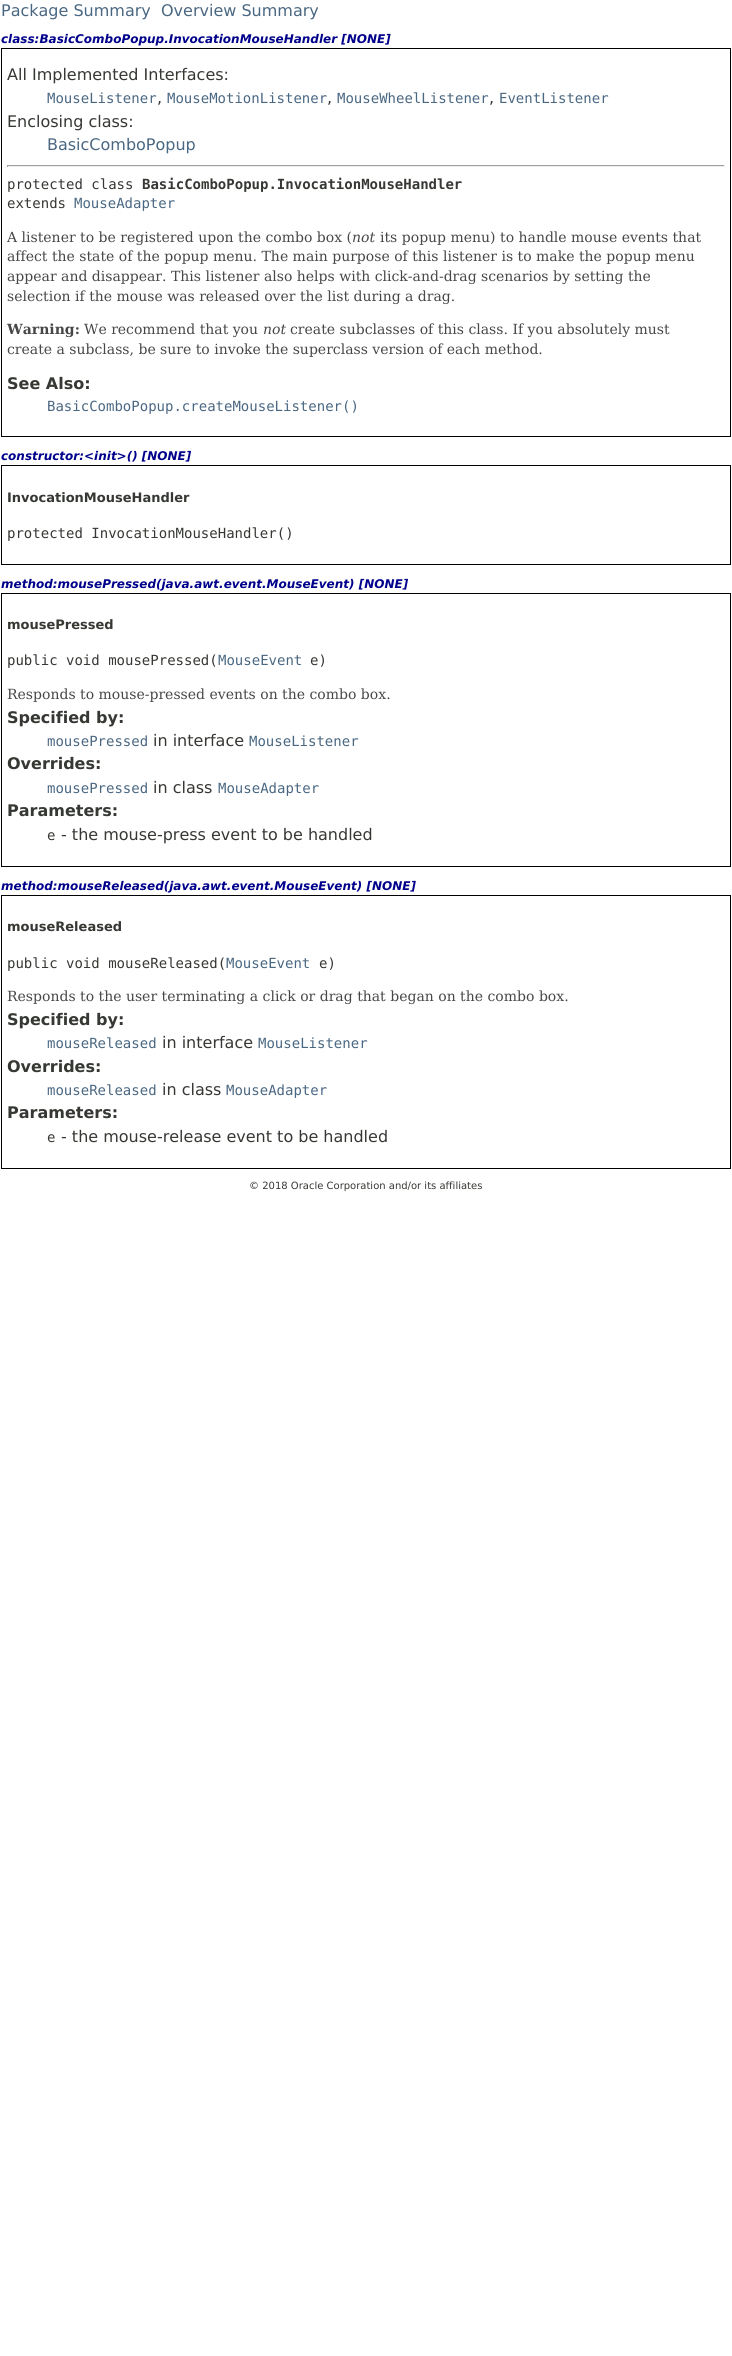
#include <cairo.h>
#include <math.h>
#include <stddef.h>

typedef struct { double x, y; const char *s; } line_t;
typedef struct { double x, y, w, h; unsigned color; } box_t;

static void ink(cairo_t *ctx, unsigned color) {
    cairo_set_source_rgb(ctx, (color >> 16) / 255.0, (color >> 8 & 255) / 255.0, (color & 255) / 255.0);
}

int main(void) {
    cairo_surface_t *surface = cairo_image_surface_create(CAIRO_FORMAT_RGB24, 732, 2356);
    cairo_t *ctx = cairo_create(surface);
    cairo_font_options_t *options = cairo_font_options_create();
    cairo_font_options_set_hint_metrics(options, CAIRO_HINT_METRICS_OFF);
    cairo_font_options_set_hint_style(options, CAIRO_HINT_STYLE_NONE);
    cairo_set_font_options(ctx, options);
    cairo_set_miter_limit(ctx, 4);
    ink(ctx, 0xFFFFFF);
    cairo_paint(ctx);
    cairo_select_font_face(ctx, "DejaVu Sans", CAIRO_FONT_SLANT_NORMAL, CAIRO_FONT_WEIGHT_NORMAL);
    cairo_set_font_size(ctx, 16);
    ink(ctx, 0x4A6782);
    cairo_move_to(ctx, 1, 16);
    cairo_show_text(ctx, "Package Summary");
    cairo_move_to(ctx, 161, 16);
    cairo_show_text(ctx, "Overview Summary");
    cairo_select_font_face(ctx, "DejaVu Sans", CAIRO_FONT_SLANT_ITALIC, CAIRO_FONT_WEIGHT_BOLD);
    cairo_set_font_size(ctx, 12);
    ink(ctx, 0x00008B);
    cairo_move_to(ctx, 1, 43);
    cairo_show_text(ctx, "class:BasicComboPopup.InvocationMouseHandler [NONE]");
    ink(ctx, 0x000000);
    cairo_rectangle(ctx, 1, 48, 730, 389);
    cairo_fill(ctx);
    ink(ctx, 0xFFFFFF);
    cairo_rectangle(ctx, 2, 49, 728, 387);
    cairo_fill(ctx);
    cairo_select_font_face(ctx, "DejaVu Sans", CAIRO_FONT_SLANT_NORMAL, CAIRO_FONT_WEIGHT_NORMAL);
    cairo_set_font_size(ctx, 16);
    ink(ctx, 0x353833);
    cairo_move_to(ctx, 7, 80);
    cairo_show_text(ctx, "All Implemented Interfaces:");
    cairo_select_font_face(ctx, "DejaVu Sans Mono", CAIRO_FONT_SLANT_NORMAL, CAIRO_FONT_WEIGHT_NORMAL);
    cairo_set_font_size(ctx, 14);
    ink(ctx, 0x4A6782);
    cairo_move_to(ctx, 47, 103);
    cairo_show_text(ctx, "MouseListener");
    cairo_select_font_face(ctx, "DejaVu Sans", CAIRO_FONT_SLANT_NORMAL, CAIRO_FONT_WEIGHT_NORMAL);
    cairo_set_font_size(ctx, 16);
    ink(ctx, 0x353833);
    cairo_move_to(ctx, 157, 103);
    cairo_show_text(ctx, ",");
    cairo_select_font_face(ctx, "DejaVu Sans Mono", CAIRO_FONT_SLANT_NORMAL, CAIRO_FONT_WEIGHT_NORMAL);
    cairo_set_font_size(ctx, 14);
    ink(ctx, 0x4A6782);
    cairo_move_to(ctx, 167, 103);
    cairo_show_text(ctx, "MouseMotionListener");
    cairo_select_font_face(ctx, "DejaVu Sans", CAIRO_FONT_SLANT_NORMAL, CAIRO_FONT_WEIGHT_NORMAL);
    cairo_set_font_size(ctx, 16);
    ink(ctx, 0x353833);
    cairo_move_to(ctx, 327, 103);
    cairo_show_text(ctx, ",");
    cairo_select_font_face(ctx, "DejaVu Sans Mono", CAIRO_FONT_SLANT_NORMAL, CAIRO_FONT_WEIGHT_NORMAL);
    cairo_set_font_size(ctx, 14);
    ink(ctx, 0x4A6782);
    cairo_move_to(ctx, 337, 103);
    cairo_show_text(ctx, "MouseWheelListener");
    cairo_select_font_face(ctx, "DejaVu Sans", CAIRO_FONT_SLANT_NORMAL, CAIRO_FONT_WEIGHT_NORMAL);
    cairo_set_font_size(ctx, 16);
    ink(ctx, 0x353833);
    cairo_move_to(ctx, 489, 103);
    cairo_show_text(ctx, ",");
    cairo_select_font_face(ctx, "DejaVu Sans Mono", CAIRO_FONT_SLANT_NORMAL, CAIRO_FONT_WEIGHT_NORMAL);
    cairo_set_font_size(ctx, 14);
    ink(ctx, 0x4A6782);
    cairo_move_to(ctx, 499, 103);
    cairo_show_text(ctx, "EventListener");
    cairo_select_font_face(ctx, "DejaVu Sans", CAIRO_FONT_SLANT_NORMAL, CAIRO_FONT_WEIGHT_NORMAL);
    cairo_set_font_size(ctx, 16);
    ink(ctx, 0x353833);
    cairo_move_to(ctx, 7, 127);
    cairo_show_text(ctx, "Enclosing class:");
    ink(ctx, 0x4A6782);
    cairo_move_to(ctx, 47, 150);
    cairo_show_text(ctx, "BasicComboPopup");
    {
        static const box_t items[] = {
            {7, 165, 718, 1, 0x9F9F9F},
            {724, 165, 1, 2, 0xEEEEEE},
            {7, 166, 718, 1, 0xEEEEEE},
            {7, 165, 1, 2, 0x9F9F9F},
        };
        for (size_t i = 0; i < sizeof items / sizeof *items; i++) {
            ink(ctx, items[i].color);
            cairo_rectangle(ctx, items[i].x, items[i].y, items[i].w, items[i].h);
            cairo_fill(ctx);
        }
    }
    cairo_select_font_face(ctx, "DejaVu Sans Mono", CAIRO_FONT_SLANT_NORMAL, CAIRO_FONT_WEIGHT_NORMAL);
    cairo_set_font_size(ctx, 14);
    ink(ctx, 0x353833);
    cairo_move_to(ctx, 7, 189);
    cairo_show_text(ctx, "protected class");
    cairo_select_font_face(ctx, "DejaVu Sans Mono", CAIRO_FONT_SLANT_NORMAL, CAIRO_FONT_WEIGHT_BOLD);
    cairo_move_to(ctx, 142, 189);
    cairo_show_text(ctx, "BasicComboPopup.InvocationMouseHandler");
    cairo_select_font_face(ctx, "DejaVu Sans Mono", CAIRO_FONT_SLANT_NORMAL, CAIRO_FONT_WEIGHT_NORMAL);
    cairo_move_to(ctx, 7, 208);
    cairo_show_text(ctx, "extends");
    ink(ctx, 0x4A6782);
    cairo_move_to(ctx, 74, 208);
    cairo_show_text(ctx, "MouseAdapter");
    cairo_select_font_face(ctx, "DejaVu Serif", CAIRO_FONT_SLANT_NORMAL, CAIRO_FONT_WEIGHT_NORMAL);
    ink(ctx, 0x474747);
    cairo_move_to(ctx, 7, 242);
    cairo_show_text(ctx, "A listener to be registered upon the combo box (");
    cairo_select_font_face(ctx, "DejaVu Serif", CAIRO_FONT_SLANT_ITALIC, CAIRO_FONT_WEIGHT_NORMAL);
    cairo_move_to(ctx, 352, 242);
    cairo_show_text(ctx, "not");
    cairo_select_font_face(ctx, "DejaVu Serif", CAIRO_FONT_SLANT_NORMAL, CAIRO_FONT_WEIGHT_NORMAL);
    {
        static const line_t items[] = {
            {380, 242, "its popup menu) to handle mouse events that"},
            {7, 261, "affect the state of the popup menu. The main purpose of this listener is to make the popup menu"},
            {7, 281, "appear and disappear. This listener also helps with click-and-drag scenarios by setting the"},
            {7, 301, "selection if the mouse was released over the list during a drag."},
        };
        for (size_t i = 0; i < sizeof items / sizeof *items; i++) {
            cairo_move_to(ctx, items[i].x, items[i].y);
            cairo_show_text(ctx, items[i].s);
        }
    }
    cairo_select_font_face(ctx, "DejaVu Serif", CAIRO_FONT_SLANT_NORMAL, CAIRO_FONT_WEIGHT_BOLD);
    cairo_move_to(ctx, 7, 334);
    cairo_show_text(ctx, "Warning:");
    cairo_select_font_face(ctx, "DejaVu Serif", CAIRO_FONT_SLANT_NORMAL, CAIRO_FONT_WEIGHT_NORMAL);
    cairo_move_to(ctx, 84, 334);
    cairo_show_text(ctx, "We recommend that you");
    cairo_select_font_face(ctx, "DejaVu Serif", CAIRO_FONT_SLANT_ITALIC, CAIRO_FONT_WEIGHT_NORMAL);
    cairo_move_to(ctx, 263, 334);
    cairo_show_text(ctx, "not");
    cairo_select_font_face(ctx, "DejaVu Serif", CAIRO_FONT_SLANT_NORMAL, CAIRO_FONT_WEIGHT_NORMAL);
    cairo_move_to(ctx, 290, 334);
    cairo_show_text(ctx, "create subclasses of this class. If you absolutely must");
    cairo_move_to(ctx, 7, 354);
    cairo_show_text(ctx, "create a subclass, be sure to invoke the superclass version of each method.");
    cairo_select_font_face(ctx, "DejaVu Sans", CAIRO_FONT_SLANT_NORMAL, CAIRO_FONT_WEIGHT_BOLD);
    cairo_set_font_size(ctx, 16);
    ink(ctx, 0x353833);
    cairo_move_to(ctx, 7, 389);
    cairo_show_text(ctx, "See Also:");
    cairo_select_font_face(ctx, "DejaVu Sans Mono", CAIRO_FONT_SLANT_NORMAL, CAIRO_FONT_WEIGHT_NORMAL);
    cairo_set_font_size(ctx, 14);
    ink(ctx, 0x4A6782);
    cairo_move_to(ctx, 47, 411);
    cairo_show_text(ctx, "BasicComboPopup.createMouseListener()");
    cairo_select_font_face(ctx, "DejaVu Sans", CAIRO_FONT_SLANT_ITALIC, CAIRO_FONT_WEIGHT_BOLD);
    cairo_set_font_size(ctx, 12);
    ink(ctx, 0x00008B);
    cairo_move_to(ctx, 1, 460);
    cairo_show_text(ctx, "constructor:<init>() [NONE]");
    ink(ctx, 0x000000);
    cairo_rectangle(ctx, 1, 465, 730, 100);
    cairo_fill(ctx);
    ink(ctx, 0xFFFFFF);
    cairo_rectangle(ctx, 2, 466, 728, 98);
    cairo_fill(ctx);
    cairo_select_font_face(ctx, "DejaVu Sans", CAIRO_FONT_SLANT_NORMAL, CAIRO_FONT_WEIGHT_BOLD);
    cairo_set_font_size(ctx, 13);
    ink(ctx, 0x353833);
    cairo_move_to(ctx, 7, 502);
    cairo_show_text(ctx, "InvocationMouseHandler");
    cairo_select_font_face(ctx, "DejaVu Sans Mono", CAIRO_FONT_SLANT_NORMAL, CAIRO_FONT_WEIGHT_NORMAL);
    cairo_set_font_size(ctx, 14);
    cairo_move_to(ctx, 7, 538);
    cairo_show_text(ctx, "protected InvocationMouseHandler()");
    cairo_select_font_face(ctx, "DejaVu Sans", CAIRO_FONT_SLANT_ITALIC, CAIRO_FONT_WEIGHT_BOLD);
    cairo_set_font_size(ctx, 12);
    ink(ctx, 0x00008B);
    cairo_move_to(ctx, 1, 588);
    cairo_show_text(ctx, "method:mousePressed(java.awt.event.MouseEvent) [NONE]");
    ink(ctx, 0x000000);
    cairo_rectangle(ctx, 1, 593, 730, 274);
    cairo_fill(ctx);
    ink(ctx, 0xFFFFFF);
    cairo_rectangle(ctx, 2, 594, 728, 272);
    cairo_fill(ctx);
    cairo_select_font_face(ctx, "DejaVu Sans", CAIRO_FONT_SLANT_NORMAL, CAIRO_FONT_WEIGHT_BOLD);
    cairo_set_font_size(ctx, 13);
    ink(ctx, 0x353833);
    cairo_move_to(ctx, 7, 629);
    cairo_show_text(ctx, "mousePressed");
    cairo_select_font_face(ctx, "DejaVu Sans Mono", CAIRO_FONT_SLANT_NORMAL, CAIRO_FONT_WEIGHT_NORMAL);
    cairo_set_font_size(ctx, 14);
    cairo_move_to(ctx, 7, 665);
    cairo_show_text(ctx, "public void mousePressed(");
    ink(ctx, 0x4A6782);
    cairo_move_to(ctx, 218, 665);
    cairo_show_text(ctx, "MouseEvent");
    ink(ctx, 0x353833);
    cairo_move_to(ctx, 310, 665);
    cairo_show_text(ctx, "e)");
    cairo_select_font_face(ctx, "DejaVu Serif", CAIRO_FONT_SLANT_NORMAL, CAIRO_FONT_WEIGHT_NORMAL);
    ink(ctx, 0x474747);
    cairo_move_to(ctx, 7, 699);
    cairo_show_text(ctx, "Responds to mouse-pressed events on the combo box.");
    cairo_select_font_face(ctx, "DejaVu Sans", CAIRO_FONT_SLANT_NORMAL, CAIRO_FONT_WEIGHT_BOLD);
    cairo_set_font_size(ctx, 16);
    ink(ctx, 0x353833);
    cairo_move_to(ctx, 7, 723);
    cairo_show_text(ctx, "Specified by:");
    cairo_select_font_face(ctx, "DejaVu Sans Mono", CAIRO_FONT_SLANT_NORMAL, CAIRO_FONT_WEIGHT_NORMAL);
    cairo_set_font_size(ctx, 14);
    ink(ctx, 0x4A6782);
    cairo_move_to(ctx, 47, 746);
    cairo_show_text(ctx, "mousePressed");
    cairo_select_font_face(ctx, "DejaVu Sans", CAIRO_FONT_SLANT_NORMAL, CAIRO_FONT_WEIGHT_NORMAL);
    cairo_set_font_size(ctx, 16);
    ink(ctx, 0x353833);
    cairo_move_to(ctx, 153, 746);
    cairo_show_text(ctx, "in interface");
    cairo_select_font_face(ctx, "DejaVu Sans Mono", CAIRO_FONT_SLANT_NORMAL, CAIRO_FONT_WEIGHT_NORMAL);
    cairo_set_font_size(ctx, 14);
    ink(ctx, 0x4A6782);
    cairo_move_to(ctx, 249, 746);
    cairo_show_text(ctx, "MouseListener");
    cairo_select_font_face(ctx, "DejaVu Sans", CAIRO_FONT_SLANT_NORMAL, CAIRO_FONT_WEIGHT_BOLD);
    cairo_set_font_size(ctx, 16);
    ink(ctx, 0x353833);
    cairo_move_to(ctx, 7, 769);
    cairo_show_text(ctx, "Overrides:");
    cairo_select_font_face(ctx, "DejaVu Sans Mono", CAIRO_FONT_SLANT_NORMAL, CAIRO_FONT_WEIGHT_NORMAL);
    cairo_set_font_size(ctx, 14);
    ink(ctx, 0x4A6782);
    cairo_move_to(ctx, 47, 793);
    cairo_show_text(ctx, "mousePressed");
    cairo_select_font_face(ctx, "DejaVu Sans", CAIRO_FONT_SLANT_NORMAL, CAIRO_FONT_WEIGHT_NORMAL);
    cairo_set_font_size(ctx, 16);
    ink(ctx, 0x353833);
    cairo_move_to(ctx, 153, 793);
    cairo_show_text(ctx, "in class");
    cairo_select_font_face(ctx, "DejaVu Sans Mono", CAIRO_FONT_SLANT_NORMAL, CAIRO_FONT_WEIGHT_NORMAL);
    cairo_set_font_size(ctx, 14);
    ink(ctx, 0x4A6782);
    cairo_move_to(ctx, 218, 793);
    cairo_show_text(ctx, "MouseAdapter");
    cairo_select_font_face(ctx, "DejaVu Sans", CAIRO_FONT_SLANT_NORMAL, CAIRO_FONT_WEIGHT_BOLD);
    cairo_set_font_size(ctx, 16);
    ink(ctx, 0x353833);
    cairo_move_to(ctx, 7, 816);
    cairo_show_text(ctx, "Parameters:");
    cairo_select_font_face(ctx, "DejaVu Sans Mono", CAIRO_FONT_SLANT_NORMAL, CAIRO_FONT_WEIGHT_NORMAL);
    cairo_set_font_size(ctx, 14);
    cairo_move_to(ctx, 47, 840);
    cairo_show_text(ctx, "e");
    cairo_select_font_face(ctx, "DejaVu Sans", CAIRO_FONT_SLANT_NORMAL, CAIRO_FONT_WEIGHT_NORMAL);
    cairo_set_font_size(ctx, 16);
    cairo_move_to(ctx, 61, 840);
    cairo_show_text(ctx, "- the mouse-press event to be handled");
    cairo_select_font_face(ctx, "DejaVu Sans", CAIRO_FONT_SLANT_ITALIC, CAIRO_FONT_WEIGHT_BOLD);
    cairo_set_font_size(ctx, 12);
    ink(ctx, 0x00008B);
    cairo_move_to(ctx, 1, 890);
    cairo_show_text(ctx, "method:mouseReleased(java.awt.event.MouseEvent) [NONE]");
    ink(ctx, 0x000000);
    cairo_rectangle(ctx, 1, 895, 730, 274);
    cairo_fill(ctx);
    ink(ctx, 0xFFFFFF);
    cairo_rectangle(ctx, 2, 896, 728, 272);
    cairo_fill(ctx);
    cairo_select_font_face(ctx, "DejaVu Sans", CAIRO_FONT_SLANT_NORMAL, CAIRO_FONT_WEIGHT_BOLD);
    cairo_set_font_size(ctx, 13);
    ink(ctx, 0x353833);
    cairo_move_to(ctx, 7, 931);
    cairo_show_text(ctx, "mouseReleased");
    cairo_select_font_face(ctx, "DejaVu Sans Mono", CAIRO_FONT_SLANT_NORMAL, CAIRO_FONT_WEIGHT_NORMAL);
    cairo_set_font_size(ctx, 14);
    cairo_move_to(ctx, 7, 968);
    cairo_show_text(ctx, "public void mouseReleased(");
    ink(ctx, 0x4A6782);
    cairo_move_to(ctx, 226, 968);
    cairo_show_text(ctx, "MouseEvent");
    ink(ctx, 0x353833);
    cairo_move_to(ctx, 319, 968);
    cairo_show_text(ctx, "e)");
    cairo_select_font_face(ctx, "DejaVu Serif", CAIRO_FONT_SLANT_NORMAL, CAIRO_FONT_WEIGHT_NORMAL);
    ink(ctx, 0x474747);
    cairo_move_to(ctx, 7, 1001);
    cairo_show_text(ctx, "Responds to the user terminating a click or drag that began on the combo box.");
    cairo_select_font_face(ctx, "DejaVu Sans", CAIRO_FONT_SLANT_NORMAL, CAIRO_FONT_WEIGHT_BOLD);
    cairo_set_font_size(ctx, 16);
    ink(ctx, 0x353833);
    cairo_move_to(ctx, 7, 1025);
    cairo_show_text(ctx, "Specified by:");
    cairo_select_font_face(ctx, "DejaVu Sans Mono", CAIRO_FONT_SLANT_NORMAL, CAIRO_FONT_WEIGHT_NORMAL);
    cairo_set_font_size(ctx, 14);
    ink(ctx, 0x4A6782);
    cairo_move_to(ctx, 47, 1048);
    cairo_show_text(ctx, "mouseReleased");
    cairo_select_font_face(ctx, "DejaVu Sans", CAIRO_FONT_SLANT_NORMAL, CAIRO_FONT_WEIGHT_NORMAL);
    cairo_set_font_size(ctx, 16);
    ink(ctx, 0x353833);
    cairo_move_to(ctx, 162, 1048);
    cairo_show_text(ctx, "in interface");
    cairo_select_font_face(ctx, "DejaVu Sans Mono", CAIRO_FONT_SLANT_NORMAL, CAIRO_FONT_WEIGHT_NORMAL);
    cairo_set_font_size(ctx, 14);
    ink(ctx, 0x4A6782);
    cairo_move_to(ctx, 258, 1048);
    cairo_show_text(ctx, "MouseListener");
    cairo_select_font_face(ctx, "DejaVu Sans", CAIRO_FONT_SLANT_NORMAL, CAIRO_FONT_WEIGHT_BOLD);
    cairo_set_font_size(ctx, 16);
    ink(ctx, 0x353833);
    cairo_move_to(ctx, 7, 1072);
    cairo_show_text(ctx, "Overrides:");
    cairo_select_font_face(ctx, "DejaVu Sans Mono", CAIRO_FONT_SLANT_NORMAL, CAIRO_FONT_WEIGHT_NORMAL);
    cairo_set_font_size(ctx, 14);
    ink(ctx, 0x4A6782);
    cairo_move_to(ctx, 47, 1095);
    cairo_show_text(ctx, "mouseReleased");
    cairo_select_font_face(ctx, "DejaVu Sans", CAIRO_FONT_SLANT_NORMAL, CAIRO_FONT_WEIGHT_NORMAL);
    cairo_set_font_size(ctx, 16);
    ink(ctx, 0x353833);
    cairo_move_to(ctx, 162, 1095);
    cairo_show_text(ctx, "in class");
    cairo_select_font_face(ctx, "DejaVu Sans Mono", CAIRO_FONT_SLANT_NORMAL, CAIRO_FONT_WEIGHT_NORMAL);
    cairo_set_font_size(ctx, 14);
    ink(ctx, 0x4A6782);
    cairo_move_to(ctx, 226, 1095);
    cairo_show_text(ctx, "MouseAdapter");
    cairo_select_font_face(ctx, "DejaVu Sans", CAIRO_FONT_SLANT_NORMAL, CAIRO_FONT_WEIGHT_BOLD);
    cairo_set_font_size(ctx, 16);
    ink(ctx, 0x353833);
    cairo_move_to(ctx, 7, 1118);
    cairo_show_text(ctx, "Parameters:");
    cairo_select_font_face(ctx, "DejaVu Sans Mono", CAIRO_FONT_SLANT_NORMAL, CAIRO_FONT_WEIGHT_NORMAL);
    cairo_set_font_size(ctx, 14);
    cairo_move_to(ctx, 47, 1142);
    cairo_show_text(ctx, "e");
    cairo_select_font_face(ctx, "DejaVu Sans", CAIRO_FONT_SLANT_NORMAL, CAIRO_FONT_WEIGHT_NORMAL);
    cairo_set_font_size(ctx, 16);
    cairo_move_to(ctx, 61, 1142);
    cairo_show_text(ctx, "- the mouse-release event to be handled");
    cairo_set_font_size(ctx, 10);
    cairo_move_to(ctx, 249, 1189);
    cairo_show_text(ctx, "© 2018 Oracle Corporation and/or its affiliates");
    cairo_surface_write_to_png(surface, "image.png");
    cairo_font_options_destroy(options);
    cairo_destroy(ctx);
    cairo_surface_destroy(surface);
    return 0;
}
